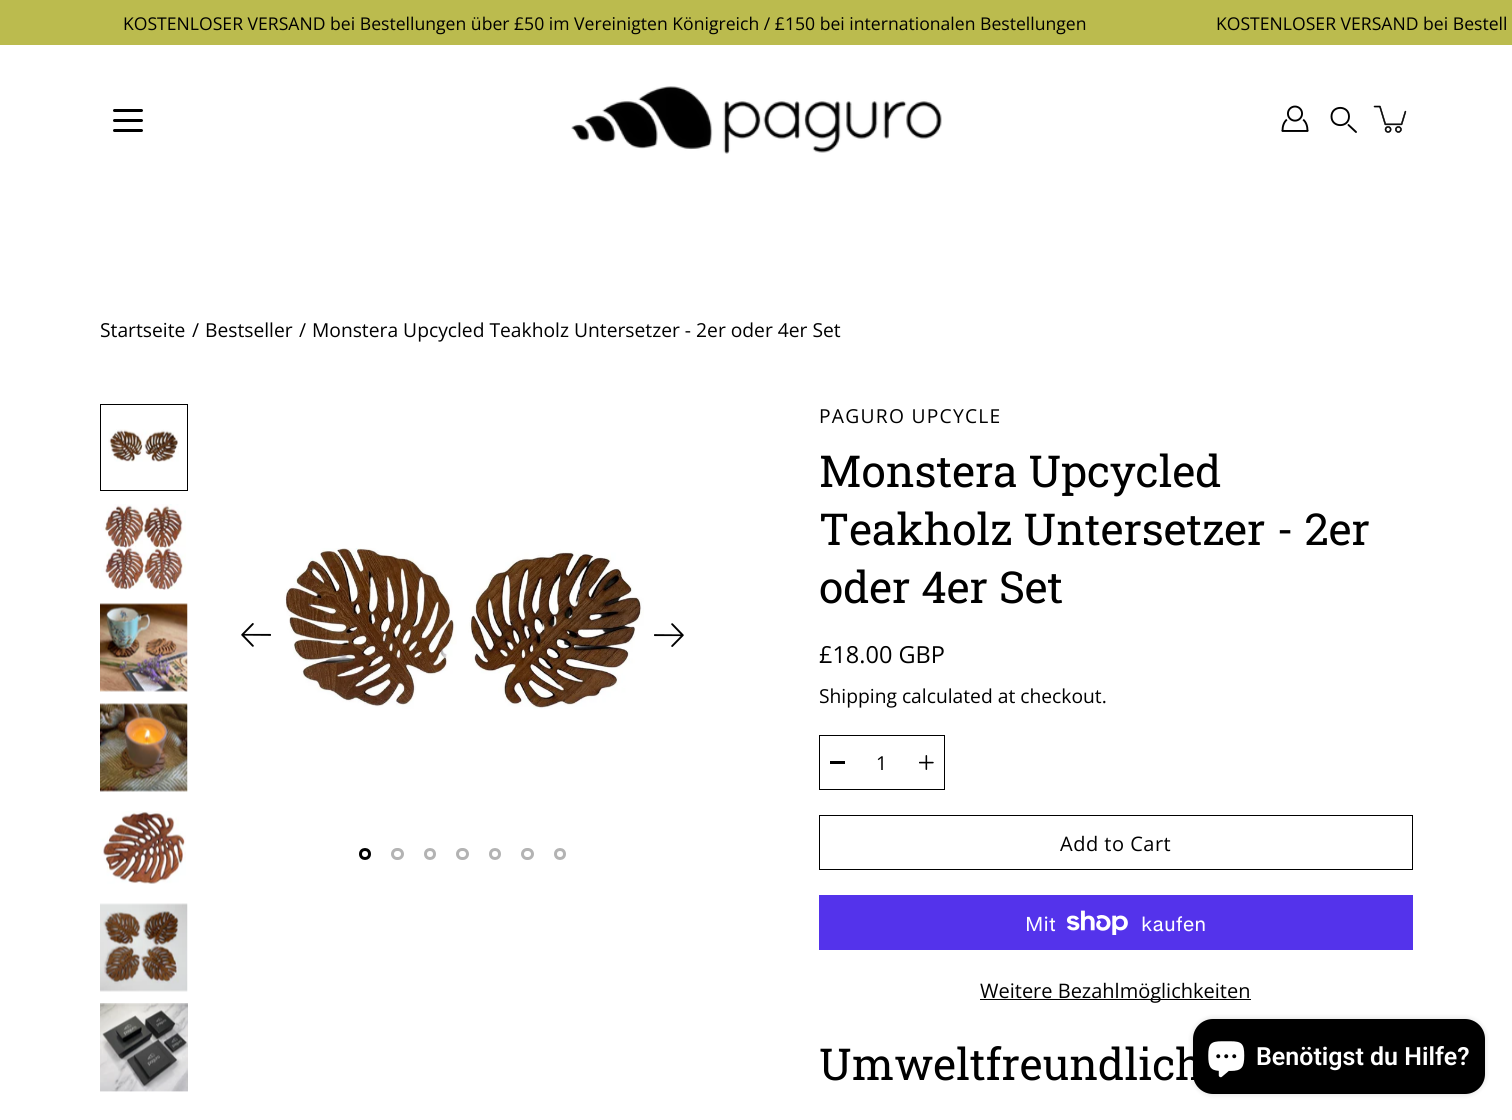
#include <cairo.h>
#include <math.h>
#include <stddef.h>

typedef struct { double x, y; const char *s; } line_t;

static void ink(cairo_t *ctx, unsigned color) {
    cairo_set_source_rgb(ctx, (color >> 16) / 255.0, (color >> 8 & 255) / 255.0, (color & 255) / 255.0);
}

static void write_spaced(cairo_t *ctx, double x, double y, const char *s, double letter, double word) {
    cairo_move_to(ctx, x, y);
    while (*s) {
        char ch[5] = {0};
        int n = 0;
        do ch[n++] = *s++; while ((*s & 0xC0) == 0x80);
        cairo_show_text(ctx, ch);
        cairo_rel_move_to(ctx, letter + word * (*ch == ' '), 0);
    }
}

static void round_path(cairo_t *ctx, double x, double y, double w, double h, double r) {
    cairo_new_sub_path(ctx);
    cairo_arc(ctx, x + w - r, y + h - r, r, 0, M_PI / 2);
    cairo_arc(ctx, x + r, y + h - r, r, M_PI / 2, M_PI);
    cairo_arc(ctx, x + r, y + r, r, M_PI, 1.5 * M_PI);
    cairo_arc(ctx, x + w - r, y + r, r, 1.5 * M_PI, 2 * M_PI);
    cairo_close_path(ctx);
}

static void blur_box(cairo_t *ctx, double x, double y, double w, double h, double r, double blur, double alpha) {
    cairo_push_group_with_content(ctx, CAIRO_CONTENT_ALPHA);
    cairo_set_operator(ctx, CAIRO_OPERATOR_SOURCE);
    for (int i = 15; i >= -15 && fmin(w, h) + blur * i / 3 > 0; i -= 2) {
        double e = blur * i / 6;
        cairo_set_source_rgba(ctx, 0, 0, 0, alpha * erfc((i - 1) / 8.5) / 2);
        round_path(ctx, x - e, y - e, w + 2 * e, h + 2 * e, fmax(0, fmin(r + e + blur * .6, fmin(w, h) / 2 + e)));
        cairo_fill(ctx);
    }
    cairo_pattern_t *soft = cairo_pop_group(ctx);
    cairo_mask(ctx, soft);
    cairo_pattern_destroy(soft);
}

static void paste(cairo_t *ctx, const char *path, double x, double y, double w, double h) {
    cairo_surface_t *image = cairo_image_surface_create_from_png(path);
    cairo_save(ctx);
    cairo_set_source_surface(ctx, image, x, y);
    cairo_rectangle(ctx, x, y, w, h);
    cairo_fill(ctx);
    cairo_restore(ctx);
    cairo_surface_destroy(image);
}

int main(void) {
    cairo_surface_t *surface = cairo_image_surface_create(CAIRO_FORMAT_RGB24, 1512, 1120);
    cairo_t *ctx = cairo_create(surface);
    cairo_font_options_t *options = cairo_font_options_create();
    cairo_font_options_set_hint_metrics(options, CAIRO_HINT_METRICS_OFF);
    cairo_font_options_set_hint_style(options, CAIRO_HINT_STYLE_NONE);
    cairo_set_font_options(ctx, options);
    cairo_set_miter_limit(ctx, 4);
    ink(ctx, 0xFFFFFF);
    cairo_paint(ctx);
    ink(ctx, 0xBBBB4E);
    cairo_rectangle(ctx, 0, 0, 1512, 45);
    cairo_fill(ctx);
    cairo_select_font_face(ctx, "Open Sans", CAIRO_FONT_SLANT_NORMAL, CAIRO_FONT_WEIGHT_NORMAL);
    cairo_set_font_size(ctx, 17.6);
    ink(ctx, 0x000000);
    cairo_move_to(ctx, 123, 30);
    cairo_show_text(ctx, "KOSTENLOSER VERSAND bei Bestellungen über £50 im Vereinigten Königreich / £150 bei internationalen Bestellungen");
    cairo_move_to(ctx, 1216, 30);
    cairo_show_text(ctx, "KOSTENLOSER VERSAND bei Bestell");
    paste(ctx, "media/1.png", 571, 86, 371, 68);
    round_path(ctx, 113, 119, 30, 3, 1.5);
    cairo_fill(ctx);
    round_path(ctx, 113, 109, 30, 3, 1.5);
    cairo_fill(ctx);
    round_path(ctx, 113, 129, 30, 3, 1.5);
    cairo_fill(ctx);
    paste(ctx, "media/2.png", 1281, 105, 28, 27);
    cairo_new_path(ctx);
    cairo_move_to(ctx, 1349, 116.5);
    cairo_curve_to(ctx, 1349, 128, 1331.5, 128, 1331.5, 116.5);
    cairo_curve_to(ctx, 1331.5, 105, 1349, 105, 1349, 116.5);
    cairo_close_path(ctx);
    cairo_set_line_width(ctx, 1.9);
    cairo_stroke(ctx);
    cairo_new_path(ctx);
    cairo_move_to(ctx, 1348.5, 125);
    cairo_line_to(ctx, 1356, 132);
    cairo_set_line_cap(ctx, CAIRO_LINE_CAP_ROUND);
    cairo_stroke(ctx);
    paste(ctx, "media/3.png", 1373, 105, 34, 28);
    cairo_set_font_size(ctx, 19.25);
    {
        static const line_t items[] = {
            {100, 337, "Startseite"},
            {192, 337, "/"},
            {205, 337, "Bestseller"},
            {299, 337, "/"},
            {312, 337, "Monstera Upcycled Teakholz Untersetzer - 2er oder 4er Set"},
        };
        for (size_t i = 0; i < sizeof items / sizeof *items; i++) {
            cairo_move_to(ctx, items[i].x, items[i].y);
            cairo_show_text(ctx, items[i].s);
        }
    }
    paste(ctx, "media/4.png", 108, 429, 71, 33);
    cairo_rectangle(ctx, 100.5, 404.5, 87, 86);
    cairo_set_line_width(ctx, 1);
    cairo_set_line_cap(ctx, CAIRO_LINE_CAP_BUTT);
    cairo_stroke(ctx);
    paste(ctx, "media/5.png", 101, 504, 85, 86);
    paste(ctx, "media/6.png", 100, 603, 88, 89);
    paste(ctx, "media/7.png", 100, 703, 88, 89);
    paste(ctx, "media/8.png", 100, 811, 86, 73);
    paste(ctx, "media/9.png", 100, 903, 88, 89);
    paste(ctx, "media/10.png", 100, 1003, 88, 89);
    paste(ctx, "media/11.png", 241, 623, 30, 24);
    paste(ctx, "media/12.png", 284, 548, 360, 161);
    paste(ctx, "media/13.png", 654, 623, 30, 24);
    cairo_arc(ctx, 365, 854, 4.5, 0, 2 * M_PI);
    cairo_set_line_width(ctx, 3);
    cairo_stroke(ctx);
    round_path(ctx, 392.5, 849.5, 10, 9, 4.5);
    ink(ctx, 0xB3B3B3);
    cairo_stroke(ctx);
    cairo_arc(ctx, 430, 854, 4.5, 0, 2 * M_PI);
    cairo_stroke(ctx);
    round_path(ctx, 457.5, 849.5, 10, 9, 4.5);
    cairo_stroke(ctx);
    cairo_arc(ctx, 495, 854, 4.5, 0, 2 * M_PI);
    cairo_stroke(ctx);
    round_path(ctx, 522.5, 849.5, 10, 9, 4.5);
    cairo_stroke(ctx);
    cairo_arc(ctx, 560, 854, 4.5, 0, 2 * M_PI);
    cairo_stroke(ctx);
    ink(ctx, 0x000000);
    write_spaced(ctx, 819, 423, "PAGURO UPCYCLE", 1.25, 0);
    cairo_select_font_face(ctx, "Roboto Slab", CAIRO_FONT_SLANT_NORMAL, CAIRO_FONT_WEIGHT_NORMAL);
    cairo_set_font_size(ctx, 44);
    {
        static const line_t items[] = {
            {819, 487, "Monstera Upcycled"},
            {819, 545, "Teakholz Untersetzer - 2er"},
            {819, 603, "oder 4er Set"},
        };
        for (size_t i = 0; i < sizeof items / sizeof *items; i++) {
            cairo_move_to(ctx, items[i].x, items[i].y);
            cairo_show_text(ctx, items[i].s);
        }
    }
    cairo_select_font_face(ctx, "Open Sans", CAIRO_FONT_SLANT_NORMAL, CAIRO_FONT_WEIGHT_NORMAL);
    cairo_set_font_size(ctx, 23.5);
    cairo_move_to(ctx, 819, 663);
    cairo_show_text(ctx, "£18.00 GBP");
    cairo_set_font_size(ctx, 19.25);
    cairo_move_to(ctx, 819, 703);
    cairo_show_text(ctx, "Shipping calculated at checkout.");
    cairo_rectangle(ctx, 819.5, 735.5, 125, 54);
    cairo_set_line_width(ctx, 1);
    cairo_stroke(ctx);
    cairo_rectangle(ctx, 830, 761, 15, 3);
    cairo_fill(ctx);
    cairo_move_to(ctx, 876, 770);
    cairo_show_text(ctx, "1");
    paste(ctx, "media/14.png", 919, 755, 15, 15);
    cairo_rectangle(ctx, 819.5, 815.5, 593, 54);
    cairo_stroke(ctx);
    cairo_set_font_size(ctx, 20);
    write_spaced(ctx, 1060, 851, "Add to Cart", 0.5, 0);
    ink(ctx, 0x5433EB);
    cairo_rectangle(ctx, 819, 895, 594, 55);
    cairo_fill(ctx);
    cairo_select_font_face(ctx, "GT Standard", CAIRO_FONT_SLANT_NORMAL, CAIRO_FONT_WEIGHT_NORMAL);
    ink(ctx, 0xFFFFFF);
    cairo_move_to(ctx, 1025, 931);
    cairo_show_text(ctx, "Mit");
    paste(ctx, "media/15.png", 1066, 910, 62, 25);
    cairo_move_to(ctx, 1141, 931);
    cairo_show_text(ctx, "kaufen");
    ink(ctx, 0x000000);
    cairo_rectangle(ctx, 980, 999, 271, 1);
    cairo_fill(ctx);
    cairo_select_font_face(ctx, "Open Sans", CAIRO_FONT_SLANT_NORMAL, CAIRO_FONT_WEIGHT_NORMAL);
    cairo_move_to(ctx, 980, 998);
    cairo_show_text(ctx, "Weitere Bezahlmöglichkeiten");
    cairo_select_font_face(ctx, "Roboto Slab", CAIRO_FONT_SLANT_NORMAL, CAIRO_FONT_WEIGHT_NORMAL);
    cairo_set_font_size(ctx, 44);
    cairo_move_to(ctx, 819, 1080);
    cairo_show_text(ctx, "Umweltfreundlich");
    ink(ctx, 0x000000);
    blur_box(ctx, 1193, 1019, 292, 75, 20, 3, 0.15);
    ink(ctx, 0x000000);
    round_path(ctx, 1193, 1019, 292, 75, 20);
    cairo_fill(ctx);
    paste(ctx, "media/16.png", 1208, 1041, 37, 37);
    cairo_select_font_face(ctx, "Roboto SemiBold", CAIRO_FONT_SLANT_NORMAL, CAIRO_FONT_WEIGHT_NORMAL);
    cairo_set_font_size(ctx, 25);
    ink(ctx, 0xFFFFFF);
    cairo_move_to(ctx, 1256, 1065);
    cairo_show_text(ctx, "Benötigst du Hilfe?");
    cairo_surface_write_to_png(surface, "image.png");
    cairo_font_options_destroy(options);
    cairo_destroy(ctx);
    cairo_surface_destroy(surface);
    return 0;
}
